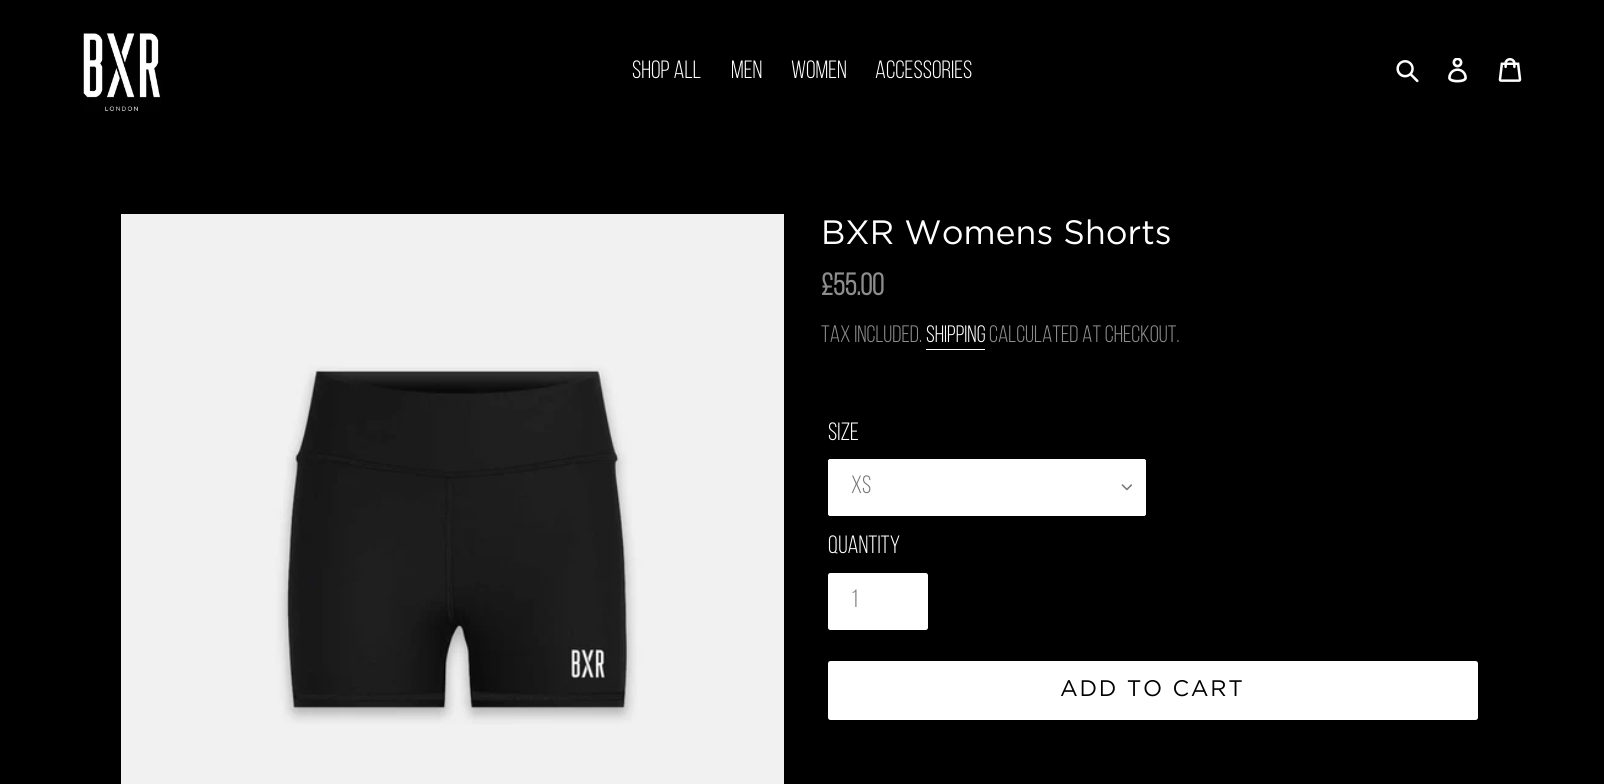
#include <cairo.h>
#include <math.h>
#include <stddef.h>

typedef struct { double x, y; const char *s; } line_t;

static void ink(cairo_t *ctx, unsigned color) {
    cairo_set_source_rgb(ctx, (color >> 16) / 255.0, (color >> 8 & 255) / 255.0, (color & 255) / 255.0);
}

static void write_spaced(cairo_t *ctx, double x, double y, const char *s, double letter, double word) {
    cairo_move_to(ctx, x, y);
    while (*s) {
        char ch[5] = {0};
        int n = 0;
        do ch[n++] = *s++; while ((*s & 0xC0) == 0x80);
        cairo_show_text(ctx, ch);
        cairo_rel_move_to(ctx, letter + word * (*ch == ' '), 0);
    }
}

static void round_path(cairo_t *ctx, double x, double y, double w, double h, double r) {
    cairo_new_sub_path(ctx);
    cairo_arc(ctx, x + w - r, y + h - r, r, 0, M_PI / 2);
    cairo_arc(ctx, x + r, y + h - r, r, M_PI / 2, M_PI);
    cairo_arc(ctx, x + r, y + r, r, M_PI, 1.5 * M_PI);
    cairo_arc(ctx, x + w - r, y + r, r, 1.5 * M_PI, 2 * M_PI);
    cairo_close_path(ctx);
}

static void paste(cairo_t *ctx, const char *path, double x, double y, double w, double h) {
    cairo_surface_t *image = cairo_image_surface_create_from_png(path);
    cairo_save(ctx);
    cairo_set_source_surface(ctx, image, x, y);
    cairo_rectangle(ctx, x, y, w, h);
    cairo_fill(ctx);
    cairo_restore(ctx);
    cairo_surface_destroy(image);
}

int main(void) {
    cairo_surface_t *surface = cairo_image_surface_create(CAIRO_FORMAT_RGB24, 1604, 784);
    cairo_t *ctx = cairo_create(surface);
    cairo_font_options_t *options = cairo_font_options_create();
    cairo_font_options_set_hint_metrics(options, CAIRO_HINT_METRICS_OFF);
    cairo_font_options_set_hint_style(options, CAIRO_HINT_STYLE_NONE);
    cairo_set_font_options(ctx, options);
    cairo_set_miter_limit(ctx, 4);
    ink(ctx, 0x000000);
    cairo_paint(ctx);
    paste(ctx, "media/1.png", 83, 33, 78, 79);
    cairo_select_font_face(ctx, "Bebas Neue", CAIRO_FONT_SLANT_NORMAL, CAIRO_FONT_WEIGHT_NORMAL);
    cairo_set_font_size(ctx, 25);
    ink(ctx, 0xFFFFFF);
    {
        static const line_t items[] = {
            {632, 78, "SHOP ALL"},
            {731, 78, "MEN"},
            {791, 78, "WOMEN"},
            {875, 78, "ACCESSORIES"},
        };
        for (size_t i = 0; i < sizeof items / sizeof *items; i++) {
            cairo_move_to(ctx, items[i].x, items[i].y);
            cairo_show_text(ctx, items[i].s);
        }
    }
    paste(ctx, "media/2.png", 1396, 60, 23, 23);
    paste(ctx, "media/3.png", 1448, 58, 19, 25);
    paste(ctx, "media/4.png", 1498, 58, 24, 24);
    paste(ctx, "media/5.png", 121, 214, 663, 570);
    cairo_select_font_face(ctx, "Gotham", CAIRO_FONT_SLANT_NORMAL, CAIRO_FONT_WEIGHT_NORMAL);
    cairo_set_font_size(ctx, 33.75);
    cairo_move_to(ctx, 821, 244);
    cairo_show_text(ctx, "BXR Womens Shorts");
    cairo_select_font_face(ctx, "Bebas Neue", CAIRO_FONT_SLANT_NORMAL, CAIRO_FONT_WEIGHT_BOLD);
    cairo_set_font_size(ctx, 31);
    ink(ctx, 0x8D8D8D);
    cairo_move_to(ctx, 821, 295);
    cairo_show_text(ctx, "£55.00");
    cairo_select_font_face(ctx, "Bebas Neue", CAIRO_FONT_SLANT_NORMAL, CAIRO_FONT_WEIGHT_NORMAL);
    cairo_set_font_size(ctx, 23.75);
    cairo_move_to(ctx, 821, 342);
    cairo_show_text(ctx, "Tax included.");
    ink(ctx, 0xFFFFFF);
    cairo_move_to(ctx, 926, 342);
    cairo_show_text(ctx, "Shipping");
    cairo_rectangle(ctx, 926, 349, 59, 1);
    cairo_fill(ctx);
    ink(ctx, 0x8D8D8D);
    cairo_move_to(ctx, 989, 342);
    cairo_show_text(ctx, "calculated at checkout.");
    cairo_set_font_size(ctx, 25);
    ink(ctx, 0xFFFFFF);
    cairo_move_to(ctx, 828, 440);
    cairo_show_text(ctx, "Size");
    round_path(ctx, 828, 459, 318, 57, 2.5);
    cairo_fill(ctx);
    paste(ctx, "media/6.png", 1121, 484, 11, 7);
    round_path(ctx, 828.5, 459.5, 317, 56, 2);
    cairo_set_line_width(ctx, 1);
    cairo_stroke(ctx);
    ink(ctx, 0x777777);
    cairo_move_to(ctx, 851, 493);
    cairo_show_text(ctx, "XS");
    ink(ctx, 0xFFFFFF);
    cairo_move_to(ctx, 828, 553);
    cairo_show_text(ctx, "Quantity");
    round_path(ctx, 828.5, 573.5, 99, 56, 2);
    cairo_fill_preserve(ctx);
    cairo_stroke(ctx);
    ink(ctx, 0x777777);
    cairo_move_to(ctx, 851, 607);
    cairo_show_text(ctx, "1");
    ink(ctx, 0xFFFFFF);
    round_path(ctx, 828, 661, 650, 59, 2.5);
    cairo_fill(ctx);
    cairo_select_font_face(ctx, "Gotham", CAIRO_FONT_SLANT_NORMAL, CAIRO_FONT_WEIGHT_NORMAL);
    cairo_set_font_size(ctx, 22.5);
    ink(ctx, 0x000000);
    write_spaced(ctx, 1060, 696, "ADD TO CART", 1.75, 0);
    cairo_surface_write_to_png(surface, "image.png");
    cairo_font_options_destroy(options);
    cairo_destroy(ctx);
    cairo_surface_destroy(surface);
    return 0;
}
